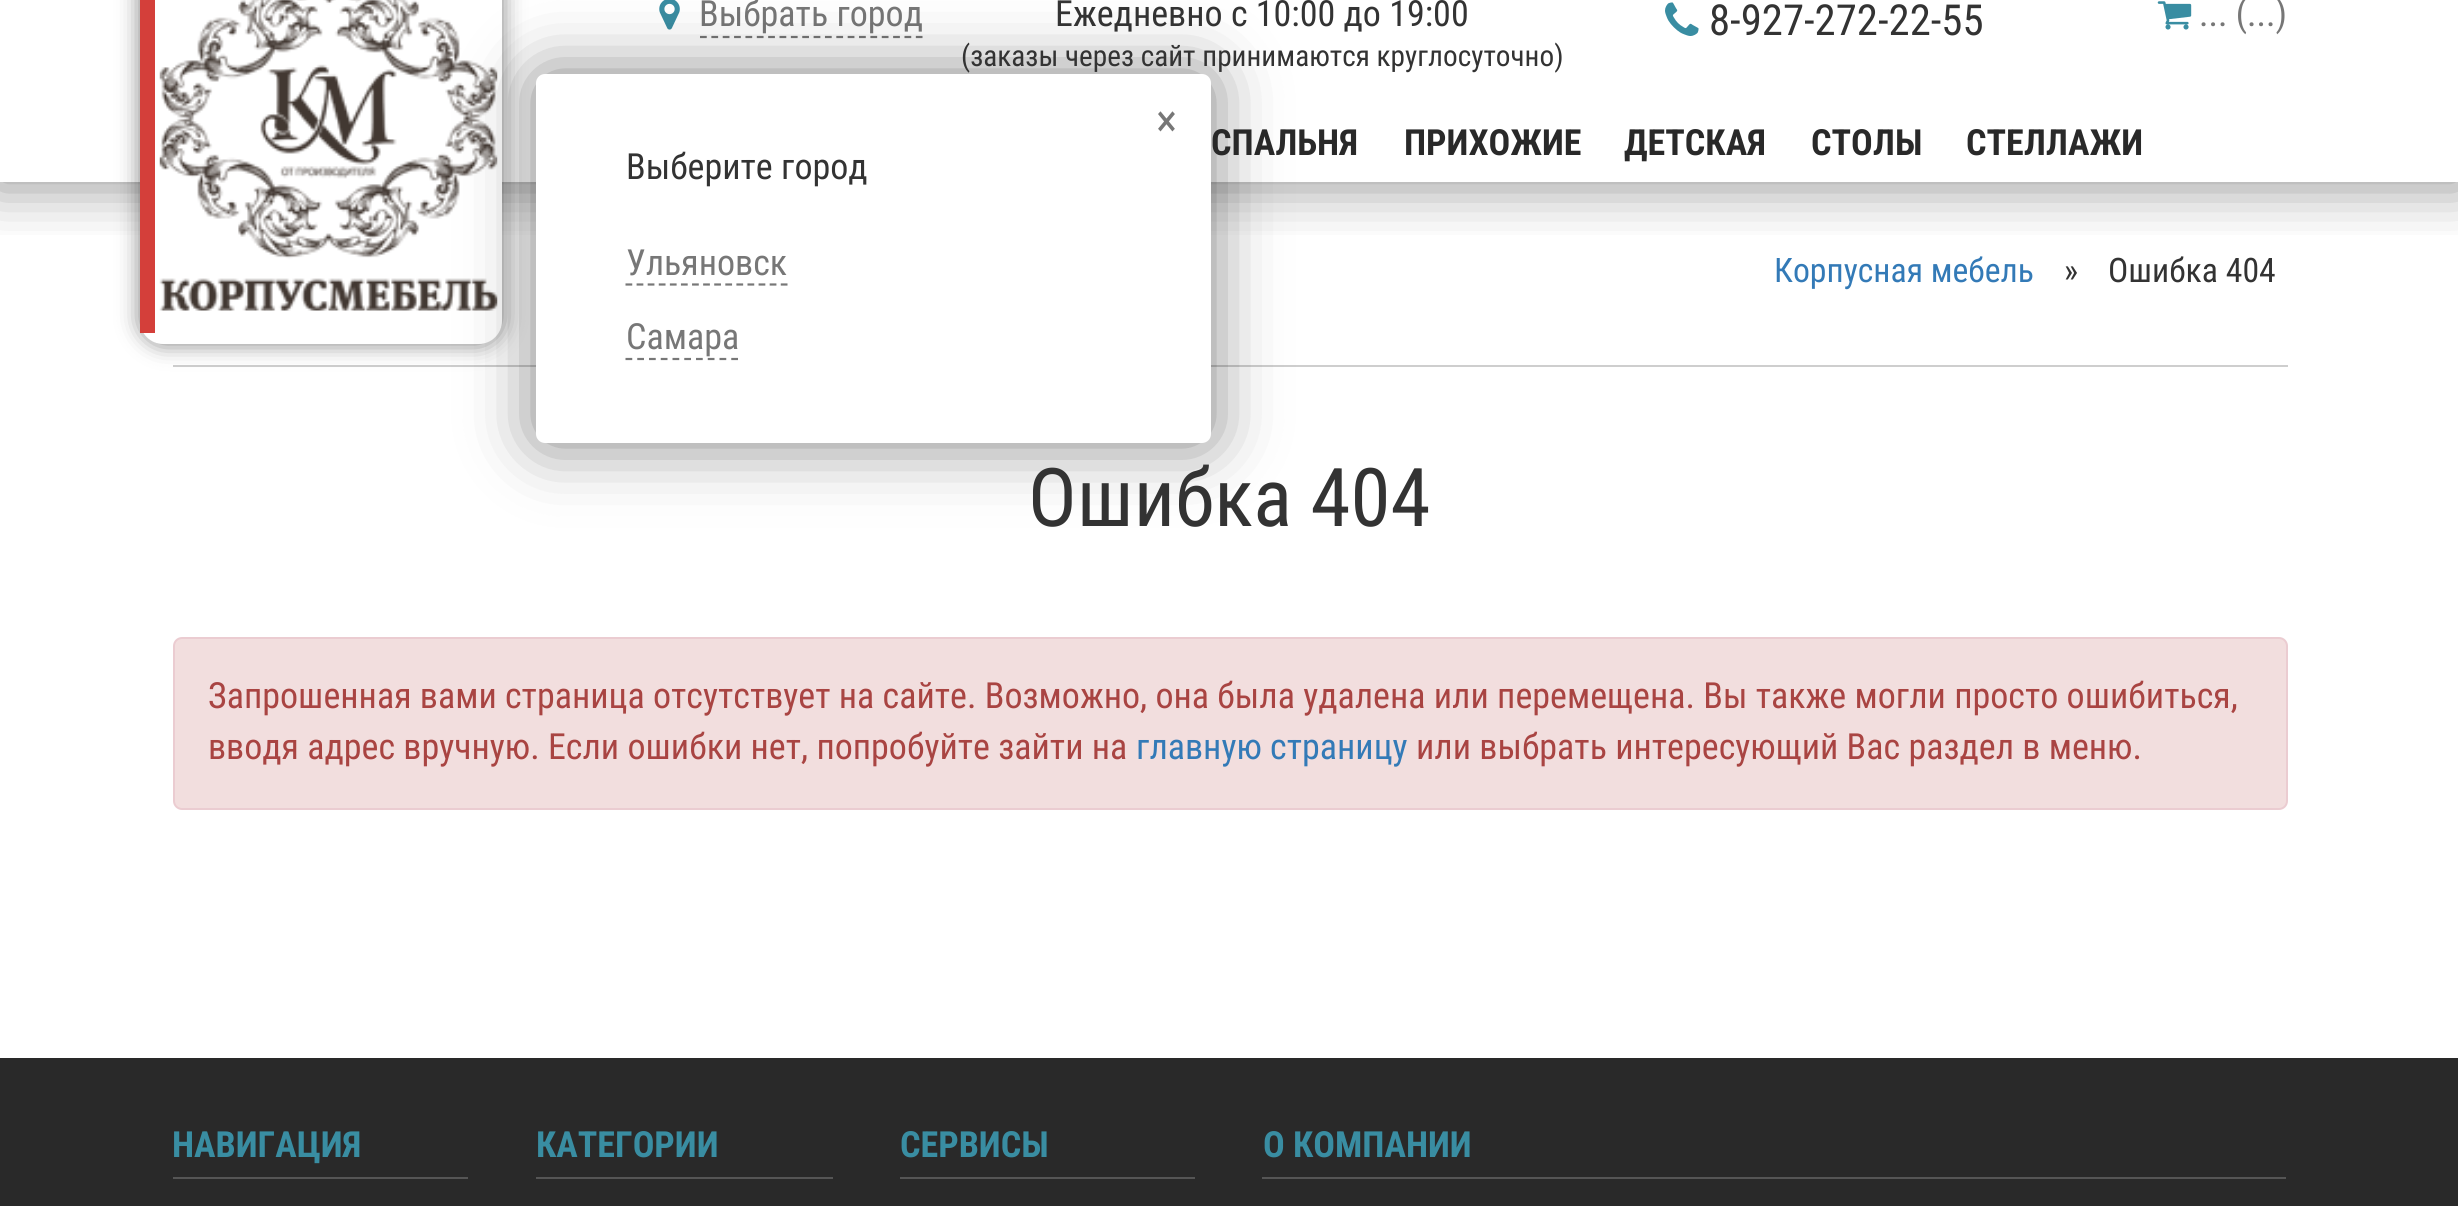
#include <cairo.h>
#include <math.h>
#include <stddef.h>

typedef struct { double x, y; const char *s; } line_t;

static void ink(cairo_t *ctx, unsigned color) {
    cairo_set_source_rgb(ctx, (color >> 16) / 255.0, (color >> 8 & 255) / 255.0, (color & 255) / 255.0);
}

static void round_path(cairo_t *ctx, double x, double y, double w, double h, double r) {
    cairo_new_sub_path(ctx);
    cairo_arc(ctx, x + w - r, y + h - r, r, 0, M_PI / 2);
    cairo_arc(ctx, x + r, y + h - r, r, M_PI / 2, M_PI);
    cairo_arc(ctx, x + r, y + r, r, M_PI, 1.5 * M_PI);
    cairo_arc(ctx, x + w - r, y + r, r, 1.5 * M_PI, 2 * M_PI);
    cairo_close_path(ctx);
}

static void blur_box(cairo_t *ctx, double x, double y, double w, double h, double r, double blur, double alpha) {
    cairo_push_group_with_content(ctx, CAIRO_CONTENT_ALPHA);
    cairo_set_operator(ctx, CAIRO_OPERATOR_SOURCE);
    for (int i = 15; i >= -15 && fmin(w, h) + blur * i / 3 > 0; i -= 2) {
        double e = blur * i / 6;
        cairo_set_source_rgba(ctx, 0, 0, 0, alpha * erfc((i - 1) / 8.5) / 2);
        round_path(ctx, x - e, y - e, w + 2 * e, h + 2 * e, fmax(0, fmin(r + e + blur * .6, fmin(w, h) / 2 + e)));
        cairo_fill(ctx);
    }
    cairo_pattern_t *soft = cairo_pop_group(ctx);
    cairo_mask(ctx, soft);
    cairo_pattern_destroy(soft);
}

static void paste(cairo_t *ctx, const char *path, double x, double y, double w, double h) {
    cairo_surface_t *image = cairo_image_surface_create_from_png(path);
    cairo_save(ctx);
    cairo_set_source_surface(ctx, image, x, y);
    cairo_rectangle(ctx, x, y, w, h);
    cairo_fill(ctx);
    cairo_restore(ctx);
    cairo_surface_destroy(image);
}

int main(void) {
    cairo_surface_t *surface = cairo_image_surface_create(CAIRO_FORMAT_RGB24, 2458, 1206);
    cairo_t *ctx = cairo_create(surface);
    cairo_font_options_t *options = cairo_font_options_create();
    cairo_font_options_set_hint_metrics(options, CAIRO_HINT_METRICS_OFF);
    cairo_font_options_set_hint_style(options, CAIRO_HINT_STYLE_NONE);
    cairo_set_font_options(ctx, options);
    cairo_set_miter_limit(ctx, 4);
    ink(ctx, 0xFFFFFF);
    cairo_paint(ctx);
    cairo_save(ctx);
    cairo_rectangle(ctx, 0, 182, 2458, 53);
    cairo_clip(ctx);
    ink(ctx, 0x000000);
    blur_box(ctx, -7, -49, 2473, 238, 0, 28, 0.4);
    cairo_restore(ctx);
    ink(ctx, 0xCECECE);
    cairo_rectangle(ctx, 173, 365, 2115, 2);
    cairo_fill(ctx);
    ink(ctx, 0x000000);
    blur_box(ctx, 140, -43, 362, 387, 23, 11, 0.5);
    ink(ctx, 0xFFFFFF);
    cairo_new_path(ctx);
    cairo_move_to(ctx, 140, -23);
    cairo_line_to(ctx, 502, -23);
    cairo_line_to(ctx, 502, 321);
    cairo_curve_to(ctx, 502, 333.5, 491.5, 344, 479, 344);
    cairo_line_to(ctx, 163, 344);
    cairo_curve_to(ctx, 150.5, 344, 140, 333.5, 140, 321);
    cairo_close_path(ctx);
    cairo_fill(ctx);
    ink(ctx, 0xD43F3A);
    cairo_rectangle(ctx, 140, 0, 15, 333);
    cairo_fill(ctx);
    paste(ctx, "media/1.png", 159, 0, 339, 311);
    paste(ctx, "media/2.png", 659, 0, 21, 30);
    cairo_select_font_face(ctx, "Roboto Condensed", CAIRO_FONT_SLANT_NORMAL, CAIRO_FONT_WEIGHT_NORMAL);
    cairo_set_font_size(ctx, 36);
    ink(ctx, 0x777777);
    cairo_move_to(ctx, 699, 26);
    cairo_show_text(ctx, "Выбрать город");
    cairo_new_path(ctx);
    cairo_move_to(ctx, 700, 37);
    cairo_line_to(ctx, 922.5, 37);
    cairo_set_line_width(ctx, 2.2);
    cairo_set_dash(ctx, (double[]){6.75, 4.61}, 2, 0);
    cairo_stroke(ctx);
    ink(ctx, 0x000000);
    blur_box(ctx, 536, 74, 675, 369, 9, 34, 0.5);
    ink(ctx, 0xFFFFFF);
    round_path(ctx, 536, 74, 675, 369, 9);
    cairo_fill(ctx);
    cairo_set_font_size(ctx, 45);
    ink(ctx, 0x777777);
    cairo_move_to(ctx, 1156, 136);
    cairo_show_text(ctx, "×");
    cairo_set_font_size(ctx, 36);
    ink(ctx, 0x333333);
    cairo_move_to(ctx, 626, 179);
    cairo_show_text(ctx, "Выберите город");
    ink(ctx, 0x777777);
    cairo_move_to(ctx, 626, 275);
    cairo_show_text(ctx, "Ульяновск");
    cairo_new_path(ctx);
    cairo_move_to(ctx, 625.5, 284.5);
    cairo_line_to(ctx, 787.5, 284.5);
    cairo_set_dash(ctx, (double[]){6.75, 4.34}, 2, 0);
    cairo_stroke(ctx);
    cairo_move_to(ctx, 626, 349);
    cairo_show_text(ctx, "Самара");
    cairo_new_path(ctx);
    cairo_move_to(ctx, 625.5, 359);
    cairo_line_to(ctx, 738, 359);
    cairo_set_dash(ctx, (double[]){6.75, 5}, 2, 0);
    cairo_stroke(ctx);
    ink(ctx, 0x333333);
    cairo_move_to(ctx, 1055, 26);
    cairo_show_text(ctx, "Ежедневно с 10:00 до 19:00");
    cairo_set_font_size(ctx, 29.25);
    cairo_move_to(ctx, 961, 66);
    cairo_show_text(ctx, "(заказы через сайт принимаются круглосуточно)");
    paste(ctx, "media/3.png", 1665, 2, 34, 34);
    cairo_set_font_size(ctx, 42.75);
    cairo_move_to(ctx, 1709, 35);
    cairo_show_text(ctx, "8-927-272-22-55");
    paste(ctx, "media/4.png", 2157, 1, 35, 29);
    cairo_set_font_size(ctx, 36);
    ink(ctx, 0x777777);
    cairo_move_to(ctx, 2199, 26);
    cairo_show_text(ctx, "... (...)");
    cairo_select_font_face(ctx, "Roboto Condensed", CAIRO_FONT_SLANT_NORMAL, CAIRO_FONT_WEIGHT_BOLD);
    ink(ctx, 0x292929);
    {
        static const line_t items[] = {
            {1211, 155, "СПАЛЬНЯ"},
            {1404, 155, "ПРИХОЖИЕ"},
            {1624, 155, "ДЕТСКАЯ"},
            {1811, 155, "СТОЛЫ"},
            {1966, 155, "СТЕЛЛАЖИ"},
        };
        for (size_t i = 0; i < sizeof items / sizeof *items; i++) {
            cairo_move_to(ctx, items[i].x, items[i].y);
            cairo_show_text(ctx, items[i].s);
        }
    }
    cairo_select_font_face(ctx, "Roboto Condensed", CAIRO_FONT_SLANT_NORMAL, CAIRO_FONT_WEIGHT_NORMAL);
    cairo_set_font_size(ctx, 33.75);
    ink(ctx, 0x337AB7);
    cairo_move_to(ctx, 1774, 282);
    cairo_show_text(ctx, "Корпусная мебель");
    ink(ctx, 0x333333);
    cairo_move_to(ctx, 2064, 282);
    cairo_show_text(ctx, "»");
    cairo_move_to(ctx, 2108, 282);
    cairo_show_text(ctx, "Ошибка 404");
    cairo_set_font_size(ctx, 81);
    cairo_move_to(ctx, 1028, 526);
    cairo_show_text(ctx, "Ошибка 404");
    ink(ctx, 0xF2DEDE);
    round_path(ctx, 174, 638, 2113, 171, 8);
    cairo_fill_preserve(ctx);
    ink(ctx, 0xEBCCD1);
    cairo_set_line_width(ctx, 2);
    cairo_set_dash(ctx, NULL, 0, 0);
    cairo_stroke(ctx);
    cairo_set_font_size(ctx, 36);
    ink(ctx, 0xA94442);
    cairo_move_to(ctx, 208, 708);
    cairo_show_text(ctx, "Запрошенная вами страница отсутствует на сайте. Возможно, она была удалена или перемещена. Вы также могли просто ошибиться,");
    cairo_move_to(ctx, 208, 759);
    cairo_show_text(ctx, "вводя адрес вручную. Если ошибки нет, попробуйте зайти на");
    ink(ctx, 0x337AB7);
    cairo_move_to(ctx, 1136, 759);
    cairo_show_text(ctx, "главную страницу");
    ink(ctx, 0xA94442);
    cairo_move_to(ctx, 1416, 759);
    cairo_show_text(ctx, "или выбрать интересующий Вас раздел в меню.");
    ink(ctx, 0x292929);
    cairo_rectangle(ctx, 0, 1058, 2458, 148);
    cairo_fill(ctx);
    ink(ctx, 0x555555);
    cairo_rectangle(ctx, 173, 1177, 295, 2);
    cairo_fill(ctx);
    cairo_select_font_face(ctx, "Roboto Condensed", CAIRO_FONT_SLANT_NORMAL, CAIRO_FONT_WEIGHT_BOLD);
    ink(ctx, 0x398DA2);
    cairo_move_to(ctx, 172, 1157);
    cairo_show_text(ctx, "НАВИГАЦИЯ");
    ink(ctx, 0x555555);
    cairo_rectangle(ctx, 536, 1177, 297, 2);
    cairo_fill(ctx);
    ink(ctx, 0x398DA2);
    cairo_move_to(ctx, 536, 1157);
    cairo_show_text(ctx, "КАТЕГОРИИ");
    ink(ctx, 0x555555);
    cairo_rectangle(ctx, 900, 1177, 295, 2);
    cairo_fill(ctx);
    ink(ctx, 0x398DA2);
    cairo_move_to(ctx, 900, 1157);
    cairo_show_text(ctx, "СЕРВИСЫ");
    ink(ctx, 0x555555);
    cairo_rectangle(ctx, 1262, 1177, 1024, 2);
    cairo_fill(ctx);
    ink(ctx, 0x398DA2);
    cairo_move_to(ctx, 1263, 1157);
    cairo_show_text(ctx, "О КОМПАНИИ");
    cairo_surface_write_to_png(surface, "image.png");
    cairo_font_options_destroy(options);
    cairo_destroy(ctx);
    cairo_surface_destroy(surface);
    return 0;
}
